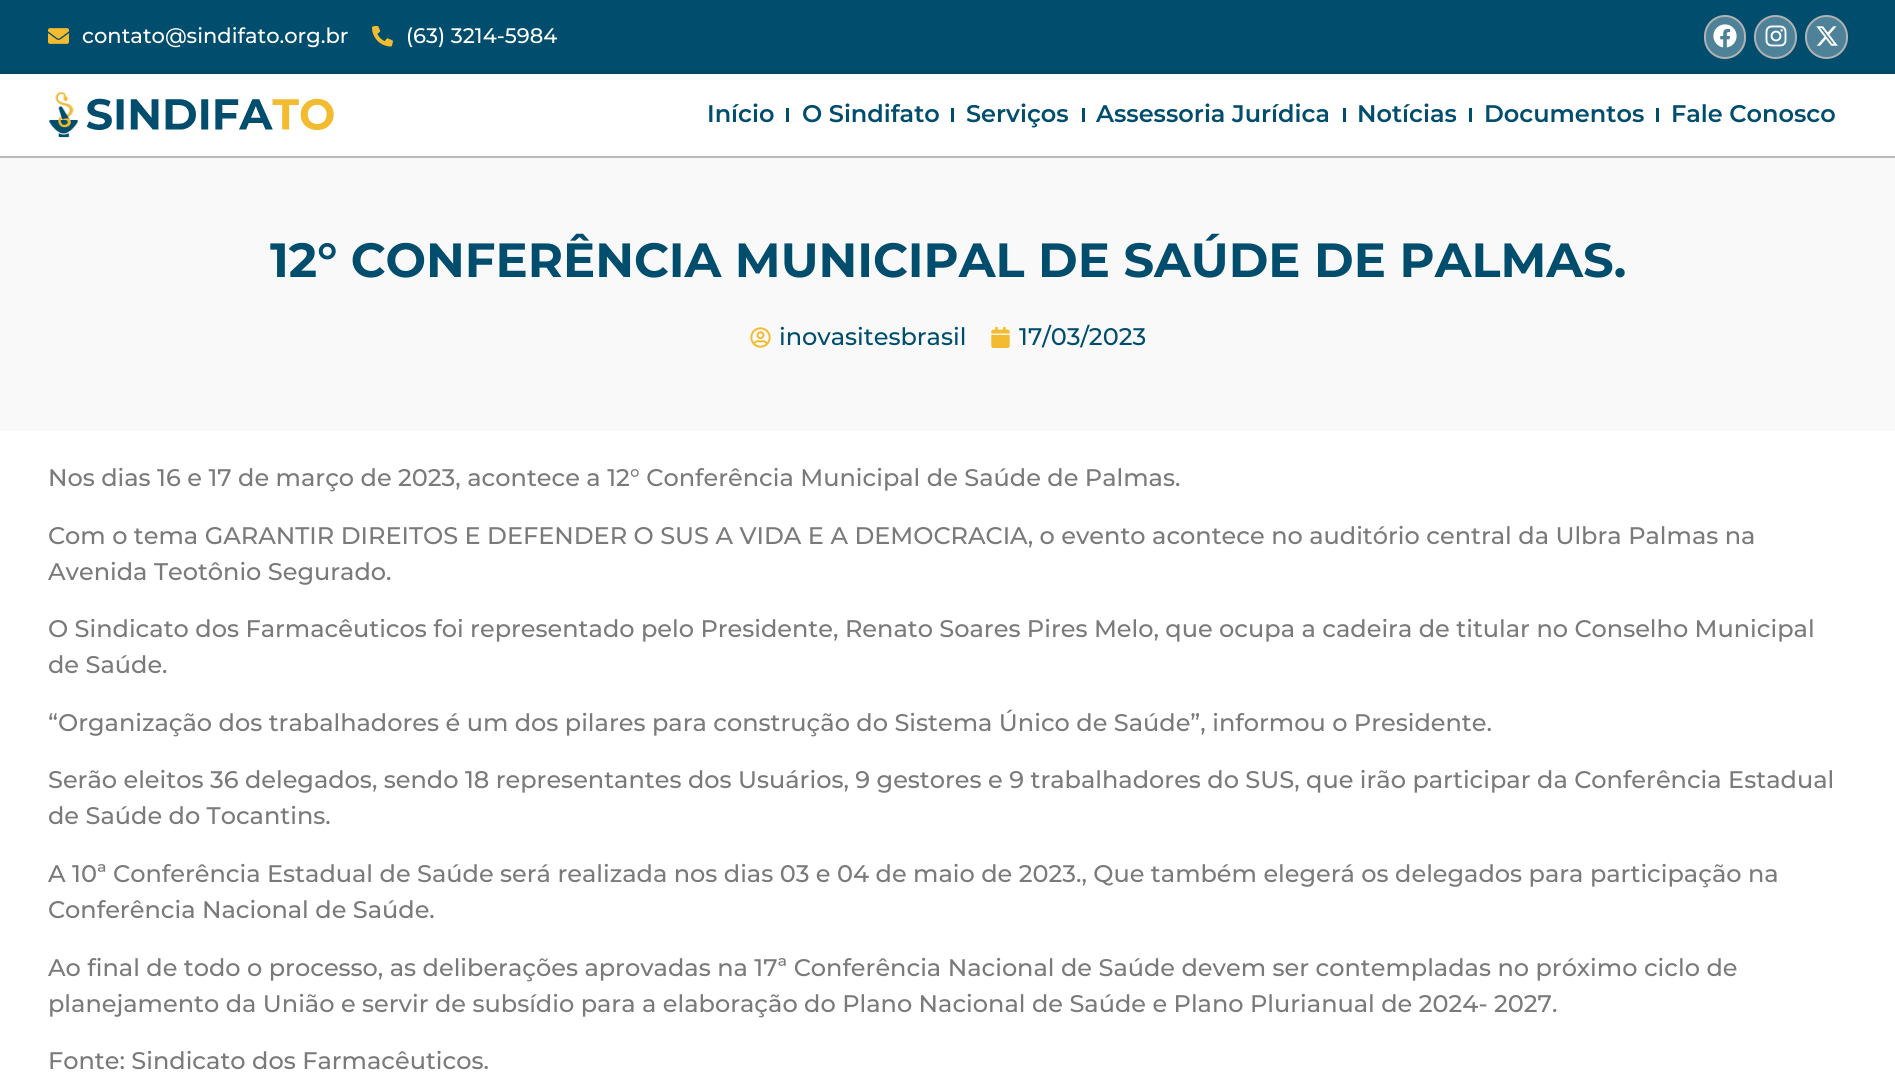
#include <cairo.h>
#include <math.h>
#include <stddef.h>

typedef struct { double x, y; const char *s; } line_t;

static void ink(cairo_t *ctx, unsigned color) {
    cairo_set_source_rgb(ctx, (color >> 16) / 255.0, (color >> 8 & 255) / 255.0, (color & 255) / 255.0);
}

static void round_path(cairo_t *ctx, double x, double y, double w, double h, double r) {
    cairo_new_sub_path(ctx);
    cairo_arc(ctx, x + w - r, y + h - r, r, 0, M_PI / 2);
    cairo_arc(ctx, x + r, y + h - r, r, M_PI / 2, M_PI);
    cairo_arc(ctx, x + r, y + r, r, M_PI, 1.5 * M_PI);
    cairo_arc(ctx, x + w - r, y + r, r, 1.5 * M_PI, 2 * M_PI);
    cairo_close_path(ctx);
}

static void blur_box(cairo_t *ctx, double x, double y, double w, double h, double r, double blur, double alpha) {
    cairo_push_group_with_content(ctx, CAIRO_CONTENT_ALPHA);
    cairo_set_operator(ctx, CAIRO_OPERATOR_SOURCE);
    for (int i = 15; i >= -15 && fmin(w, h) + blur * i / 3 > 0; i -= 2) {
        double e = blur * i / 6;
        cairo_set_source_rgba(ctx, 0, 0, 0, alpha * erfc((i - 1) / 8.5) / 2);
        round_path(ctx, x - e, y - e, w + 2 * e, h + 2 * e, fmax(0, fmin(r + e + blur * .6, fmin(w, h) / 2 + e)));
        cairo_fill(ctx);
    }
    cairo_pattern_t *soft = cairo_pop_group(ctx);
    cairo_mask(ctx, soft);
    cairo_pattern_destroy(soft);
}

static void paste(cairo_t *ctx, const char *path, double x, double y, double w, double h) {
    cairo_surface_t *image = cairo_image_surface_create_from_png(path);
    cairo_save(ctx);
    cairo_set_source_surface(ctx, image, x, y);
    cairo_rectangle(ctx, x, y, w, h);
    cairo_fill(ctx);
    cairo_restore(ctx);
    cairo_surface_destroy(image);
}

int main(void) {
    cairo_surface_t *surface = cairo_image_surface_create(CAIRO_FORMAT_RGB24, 1895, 1074);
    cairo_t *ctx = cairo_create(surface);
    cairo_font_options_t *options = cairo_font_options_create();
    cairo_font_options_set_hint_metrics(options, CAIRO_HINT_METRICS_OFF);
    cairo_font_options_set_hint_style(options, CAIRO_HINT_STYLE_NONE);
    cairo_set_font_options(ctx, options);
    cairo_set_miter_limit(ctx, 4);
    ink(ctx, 0xFFFFFF);
    cairo_paint(ctx);
    ink(ctx, 0x004D6D);
    cairo_rectangle(ctx, 0, 0, 1895, 74);
    cairo_fill(ctx);
    paste(ctx, "media/1.png", 48, 28, 21, 16);
    cairo_select_font_face(ctx, "Montserrat Medium", CAIRO_FONT_SLANT_NORMAL, CAIRO_FONT_WEIGHT_NORMAL);
    cairo_set_font_size(ctx, 21);
    ink(ctx, 0xFFFFFF);
    cairo_move_to(ctx, 82, 43);
    cairo_show_text(ctx, "contato@sindifato.org.br");
    paste(ctx, "media/2.png", 372, 26, 21, 21);
    cairo_move_to(ctx, 406, 43);
    cairo_show_text(ctx, "(63) 3214-5984");
    ink(ctx, 0x4D8299);
    round_path(ctx, 1705, 16, 40, 42, 20);
    cairo_fill_preserve(ctx);
    ink(ctx, 0xB1B1B1);
    cairo_stroke(ctx);
    paste(ctx, "media/3.png", 1713, 24, 24, 24);
    ink(ctx, 0x4D8299);
    round_path(ctx, 1755, 16, 41, 42, 20.5);
    cairo_fill_preserve(ctx);
    ink(ctx, 0xB1B1B1);
    cairo_stroke(ctx);
    paste(ctx, "media/4.png", 1765, 25, 22, 22);
    ink(ctx, 0x4D8299);
    round_path(ctx, 1806, 16, 41, 42, 20.5);
    cairo_fill_preserve(ctx);
    ink(ctx, 0xB1B1B1);
    cairo_stroke(ctx);
    paste(ctx, "media/5.png", 1816, 26, 22, 20);
    cairo_save(ctx);
    cairo_rectangle(ctx, 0, 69, 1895, 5);
    cairo_clip(ctx);
    ink(ctx, 0x000000);
    blur_box(ctx, 0, 74, 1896, 84, 0, 4, 0.2);
    cairo_restore(ctx);
    ink(ctx, 0xB9B9B9);
    cairo_rectangle(ctx, 0, 156, 1895, 2);
    cairo_fill(ctx);
    paste(ctx, "media/6.png", 49, 92, 285, 46);
    cairo_select_font_face(ctx, "Montserrat SemiBold", CAIRO_FONT_SLANT_NORMAL, CAIRO_FONT_WEIGHT_NORMAL);
    cairo_set_font_size(ctx, 24);
    ink(ctx, 0x004D6D);
    cairo_move_to(ctx, 707, 122);
    cairo_show_text(ctx, "Início");
    cairo_rectangle(ctx, 786, 108, 3, 14);
    cairo_fill(ctx);
    cairo_move_to(ctx, 802, 122);
    cairo_show_text(ctx, "O Sindifato");
    cairo_rectangle(ctx, 951, 108, 3, 14);
    cairo_fill(ctx);
    cairo_move_to(ctx, 966, 122);
    cairo_show_text(ctx, "Serviços");
    cairo_rectangle(ctx, 1082, 108, 3, 14);
    cairo_fill(ctx);
    cairo_move_to(ctx, 1096, 122);
    cairo_show_text(ctx, "Assessoria Jurídica");
    cairo_rectangle(ctx, 1343, 108, 3, 14);
    cairo_fill(ctx);
    cairo_move_to(ctx, 1357, 122);
    cairo_show_text(ctx, "Notícias");
    cairo_rectangle(ctx, 1469, 108, 3, 14);
    cairo_fill(ctx);
    cairo_move_to(ctx, 1484, 122);
    cairo_show_text(ctx, "Documentos");
    cairo_rectangle(ctx, 1656, 108, 3, 14);
    cairo_fill(ctx);
    cairo_move_to(ctx, 1671, 122);
    cairo_show_text(ctx, "Fale Conosco");
    ink(ctx, 0xF9F9F9);
    cairo_rectangle(ctx, 0, 158, 1895, 273);
    cairo_fill(ctx);
    cairo_select_font_face(ctx, "Montserrat", CAIRO_FONT_SLANT_NORMAL, CAIRO_FONT_WEIGHT_BOLD);
    cairo_set_font_size(ctx, 48);
    ink(ctx, 0x004D6D);
    cairo_move_to(ctx, 270, 277);
    cairo_show_text(ctx, "12° CONFERÊNCIA MUNICIPAL DE SAÚDE DE PALMAS.");
    paste(ctx, "media/7.png", 750, 327, 21, 21);
    cairo_select_font_face(ctx, "Montserrat Medium", CAIRO_FONT_SLANT_NORMAL, CAIRO_FONT_WEIGHT_NORMAL);
    cairo_set_font_size(ctx, 24);
    cairo_move_to(ctx, 779, 345);
    cairo_show_text(ctx, "inovasitesbrasil");
    paste(ctx, "media/8.png", 991, 327, 19, 21);
    cairo_move_to(ctx, 1019, 345);
    cairo_show_text(ctx, "17/03/2023");
    ink(ctx, 0x7A7A7A);
    {
        static const line_t items[] = {
            {48, 486, "Nos dias 16 e 17 de março de 2023, acontece a 12° Conferência Municipal de Saúde de Palmas."},
            {48, 544, "Com o tema GARANTIR DIREITOS E DEFENDER O SUS A VIDA E A DEMOCRACIA, o evento acontece no auditório central da Ulbra Palmas na"},
            {48, 580, "Avenida Teotônio Segurado."},
            {48, 637, "O Sindicato dos Farmacêuticos foi representado pelo Presidente, Renato Soares Pires Melo, que ocupa a cadeira de titular no Conselho Municipal"},
            {48, 673, "de Saúde."},
            {48, 731, "“Organização dos trabalhadores é um dos pilares para construção do Sistema Único de Saúde”, informou o Presidente."},
            {48, 788, "Serão eleitos 36 delegados, sendo 18 representantes dos Usuários, 9 gestores e 9 trabalhadores do SUS, que irão participar da Conferência Estadual"},
            {48, 824, "de Saúde do Tocantins."},
            {48, 882, "A 10ª Conferência Estadual de Saúde será realizada nos dias 03 e 04 de maio de 2023., Que também elegerá os delegados para participação na"},
            {48, 918, "Conferência Nacional de Saúde."},
            {48, 976, "Ao final de todo o processo, as deliberações aprovadas na 17ª Conferência Nacional de Saúde devem ser contempladas no próximo ciclo de"},
            {48, 1012, "planejamento da União e servir de subsídio para a elaboração do Plano Nacional de Saúde e Plano Plurianual de 2024- 2027."},
            {48, 1069, "Fonte: Sindicato dos Farmacêuticos."},
        };
        for (size_t i = 0; i < sizeof items / sizeof *items; i++) {
            cairo_move_to(ctx, items[i].x, items[i].y);
            cairo_show_text(ctx, items[i].s);
        }
    }
    cairo_surface_write_to_png(surface, "image.png");
    cairo_font_options_destroy(options);
    cairo_destroy(ctx);
    cairo_surface_destroy(surface);
    return 0;
}
